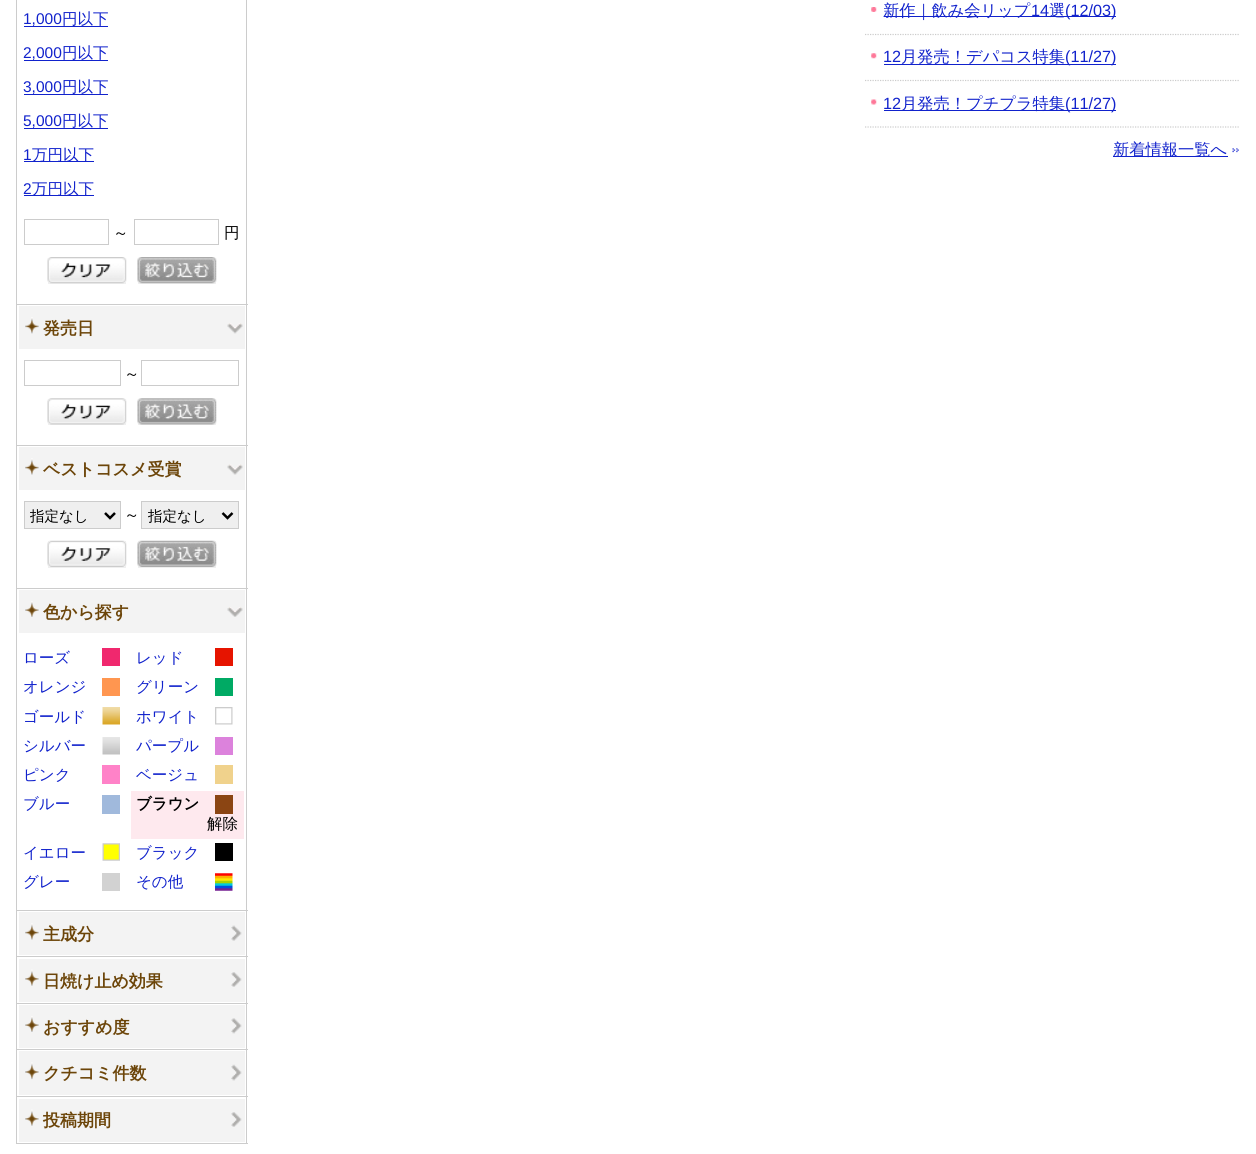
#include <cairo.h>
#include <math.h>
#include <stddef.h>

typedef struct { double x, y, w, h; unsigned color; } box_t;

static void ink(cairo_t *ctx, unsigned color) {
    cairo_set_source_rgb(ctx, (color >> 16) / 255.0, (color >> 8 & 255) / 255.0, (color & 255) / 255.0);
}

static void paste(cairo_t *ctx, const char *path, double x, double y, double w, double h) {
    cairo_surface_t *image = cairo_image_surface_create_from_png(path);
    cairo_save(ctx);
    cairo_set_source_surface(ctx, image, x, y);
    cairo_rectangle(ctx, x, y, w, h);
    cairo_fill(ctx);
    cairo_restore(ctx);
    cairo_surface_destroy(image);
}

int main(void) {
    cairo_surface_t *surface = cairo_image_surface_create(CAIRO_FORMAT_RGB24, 1256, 1154);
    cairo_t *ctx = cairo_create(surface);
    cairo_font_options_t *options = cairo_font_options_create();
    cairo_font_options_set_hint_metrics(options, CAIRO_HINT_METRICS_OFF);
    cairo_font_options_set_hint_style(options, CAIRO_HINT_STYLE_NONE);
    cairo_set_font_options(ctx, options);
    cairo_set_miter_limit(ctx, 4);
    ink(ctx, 0xFFFFFF);
    cairo_paint(ctx);
    {
        static const box_t items[] = {
            {246, 0, 1, 1144, 0xCCCCCC},
            {16, 304, 232, 1, 0xCCCCCC},
            {16, 0, 1, 305, 0xCCCCCC},
        };
        for (size_t i = 0; i < sizeof items / sizeof *items; i++) {
            ink(ctx, items[i].color);
            cairo_rectangle(ctx, items[i].x, items[i].y, items[i].w, items[i].h);
            cairo_fill(ctx);
        }
    }
    cairo_select_font_face(ctx, "Liberation Sans", CAIRO_FONT_SLANT_NORMAL, CAIRO_FONT_WEIGHT_NORMAL);
    cairo_set_font_size(ctx, 15.5);
    ink(ctx, 0x1122CC);
    cairo_move_to(ctx, 23, 24);
    cairo_show_text(ctx, "1,000");
    cairo_rectangle(ctx, 24, 26, 84, 1);
    cairo_fill(ctx);
    cairo_select_font_face(ctx, "WenQuanYi Zen Hei Medium", CAIRO_FONT_SLANT_NORMAL, CAIRO_FONT_WEIGHT_NORMAL);
    cairo_move_to(ctx, 62, 24);
    cairo_show_text(ctx, "円以下");
    cairo_select_font_face(ctx, "Liberation Sans", CAIRO_FONT_SLANT_NORMAL, CAIRO_FONT_WEIGHT_NORMAL);
    cairo_move_to(ctx, 23, 58);
    cairo_show_text(ctx, "2,000");
    cairo_rectangle(ctx, 24, 60, 84, 1);
    cairo_fill(ctx);
    cairo_select_font_face(ctx, "WenQuanYi Zen Hei Medium", CAIRO_FONT_SLANT_NORMAL, CAIRO_FONT_WEIGHT_NORMAL);
    cairo_move_to(ctx, 62, 58);
    cairo_show_text(ctx, "円以下");
    cairo_select_font_face(ctx, "Liberation Sans", CAIRO_FONT_SLANT_NORMAL, CAIRO_FONT_WEIGHT_NORMAL);
    cairo_move_to(ctx, 23, 92);
    cairo_show_text(ctx, "3,000");
    cairo_rectangle(ctx, 24, 94, 84, 1);
    cairo_fill(ctx);
    cairo_select_font_face(ctx, "WenQuanYi Zen Hei Medium", CAIRO_FONT_SLANT_NORMAL, CAIRO_FONT_WEIGHT_NORMAL);
    cairo_move_to(ctx, 62, 92);
    cairo_show_text(ctx, "円以下");
    cairo_select_font_face(ctx, "Liberation Sans", CAIRO_FONT_SLANT_NORMAL, CAIRO_FONT_WEIGHT_NORMAL);
    cairo_move_to(ctx, 23, 126);
    cairo_show_text(ctx, "5,000");
    cairo_rectangle(ctx, 24, 128, 84, 1);
    cairo_fill(ctx);
    cairo_select_font_face(ctx, "WenQuanYi Zen Hei Medium", CAIRO_FONT_SLANT_NORMAL, CAIRO_FONT_WEIGHT_NORMAL);
    cairo_move_to(ctx, 62, 126);
    cairo_show_text(ctx, "円以下");
    cairo_select_font_face(ctx, "Liberation Sans", CAIRO_FONT_SLANT_NORMAL, CAIRO_FONT_WEIGHT_NORMAL);
    cairo_move_to(ctx, 23, 160);
    cairo_show_text(ctx, "1");
    cairo_rectangle(ctx, 24, 161, 70, 1);
    cairo_fill(ctx);
    cairo_select_font_face(ctx, "WenQuanYi Zen Hei Medium", CAIRO_FONT_SLANT_NORMAL, CAIRO_FONT_WEIGHT_NORMAL);
    cairo_move_to(ctx, 32, 160);
    cairo_show_text(ctx, "万円以下");
    cairo_select_font_face(ctx, "Liberation Sans", CAIRO_FONT_SLANT_NORMAL, CAIRO_FONT_WEIGHT_NORMAL);
    cairo_move_to(ctx, 23, 194);
    cairo_show_text(ctx, "2");
    cairo_rectangle(ctx, 24, 195, 70, 1);
    cairo_fill(ctx);
    cairo_select_font_face(ctx, "WenQuanYi Zen Hei Medium", CAIRO_FONT_SLANT_NORMAL, CAIRO_FONT_WEIGHT_NORMAL);
    cairo_move_to(ctx, 32, 194);
    cairo_show_text(ctx, "万円以下");
    cairo_rectangle(ctx, 24.5, 219.5, 84, 25);
    ink(ctx, 0xCCCCCC);
    cairo_set_line_width(ctx, 1);
    cairo_stroke(ctx);
    ink(ctx, 0x000000);
    cairo_move_to(ctx, 113, 238);
    cairo_show_text(ctx, "～");
    cairo_rectangle(ctx, 134.5, 219.5, 84, 25);
    ink(ctx, 0xCCCCCC);
    cairo_stroke(ctx);
    ink(ctx, 0x000000);
    cairo_move_to(ctx, 224, 238);
    cairo_show_text(ctx, "円");
    ink(ctx, 0xEFEFEF);
    cairo_rectangle(ctx, 48, 258, 78, 26);
    cairo_fill(ctx);
    paste(ctx, "media/1.png", 47, 257, 80, 27);
    cairo_rectangle(ctx, 138, 258, 78, 26);
    cairo_fill(ctx);
    paste(ctx, "media/2.png", 137, 257, 80, 27);
    {
        static const box_t items[] = {
            {16, 445, 232, 1, 0xCCCCCC},
            {16, 305, 1, 141, 0xCCCCCC},
            {19, 306, 226, 43, 0xF3F3F3},
        };
        for (size_t i = 0; i < sizeof items / sizeof *items; i++) {
            ink(ctx, items[i].color);
            cairo_rectangle(ctx, items[i].x, items[i].y, items[i].w, items[i].h);
            cairo_fill(ctx);
        }
    }
    paste(ctx, "media/3.png", 25, 317, 14, 17);
    paste(ctx, "media/4.png", 227, 323, 16, 11);
    cairo_select_font_face(ctx, "WenQuanYi Zen Hei", CAIRO_FONT_SLANT_NORMAL, CAIRO_FONT_WEIGHT_BOLD);
    cairo_set_font_size(ctx, 17);
    ink(ctx, 0x6C4509);
    cairo_move_to(ctx, 43, 334);
    cairo_show_text(ctx, "発売日");
    cairo_rectangle(ctx, 24.5, 360.5, 96, 25);
    ink(ctx, 0xCCCCCC);
    cairo_stroke(ctx);
    cairo_select_font_face(ctx, "WenQuanYi Zen Hei Medium", CAIRO_FONT_SLANT_NORMAL, CAIRO_FONT_WEIGHT_NORMAL);
    cairo_set_font_size(ctx, 15.5);
    ink(ctx, 0x000000);
    cairo_move_to(ctx, 124, 379);
    cairo_show_text(ctx, "～");
    cairo_rectangle(ctx, 141.5, 360.5, 97, 25);
    ink(ctx, 0xCCCCCC);
    cairo_stroke(ctx);
    ink(ctx, 0xEFEFEF);
    cairo_rectangle(ctx, 48, 399, 78, 26);
    cairo_fill(ctx);
    paste(ctx, "media/5.png", 47, 398, 80, 27);
    cairo_rectangle(ctx, 138, 399, 78, 26);
    cairo_fill(ctx);
    paste(ctx, "media/6.png", 137, 398, 80, 27);
    {
        static const box_t items[] = {
            {16, 588, 232, 1, 0xCCCCCC},
            {16, 446, 1, 143, 0xCCCCCC},
            {19, 447, 226, 43, 0xF3F3F3},
        };
        for (size_t i = 0; i < sizeof items / sizeof *items; i++) {
            ink(ctx, items[i].color);
            cairo_rectangle(ctx, items[i].x, items[i].y, items[i].w, items[i].h);
            cairo_fill(ctx);
        }
    }
    paste(ctx, "media/7.png", 25, 458, 14, 17);
    paste(ctx, "media/8.png", 227, 464, 16, 11);
    cairo_select_font_face(ctx, "WenQuanYi Zen Hei", CAIRO_FONT_SLANT_NORMAL, CAIRO_FONT_WEIGHT_BOLD);
    cairo_set_font_size(ctx, 17);
    ink(ctx, 0x6C4509);
    cairo_move_to(ctx, 43, 475);
    cairo_show_text(ctx, "ベストコスメ受賞");
    ink(ctx, 0xEFEFEF);
    cairo_rectangle(ctx, 24.5, 501.5, 96, 27);
    cairo_fill_preserve(ctx);
    ink(ctx, 0xCCCCCC);
    cairo_stroke(ctx);
    cairo_new_path(ctx);
    cairo_move_to(ctx, 105, 513);
    cairo_line_to(ctx, 110, 518);
    cairo_line_to(ctx, 115, 513);
    ink(ctx, 0x000000);
    cairo_set_line_width(ctx, 2.5);
    cairo_stroke(ctx);
    cairo_select_font_face(ctx, "WenQuanYi Zen Hei Medium", CAIRO_FONT_SLANT_NORMAL, CAIRO_FONT_WEIGHT_NORMAL);
    cairo_set_font_size(ctx, 14.5);
    cairo_move_to(ctx, 30, 521);
    cairo_show_text(ctx, "指定なし");
    cairo_set_font_size(ctx, 15.5);
    cairo_move_to(ctx, 124, 520);
    cairo_show_text(ctx, "～");
    ink(ctx, 0xEFEFEF);
    cairo_rectangle(ctx, 141.5, 501.5, 97, 27);
    cairo_fill_preserve(ctx);
    ink(ctx, 0xCCCCCC);
    cairo_set_line_width(ctx, 1);
    cairo_stroke(ctx);
    cairo_new_path(ctx);
    cairo_move_to(ctx, 222.5, 513);
    cairo_line_to(ctx, 227.5, 518);
    cairo_line_to(ctx, 232.5, 513);
    ink(ctx, 0x000000);
    cairo_set_line_width(ctx, 2.5);
    cairo_stroke(ctx);
    cairo_set_font_size(ctx, 14.5);
    cairo_move_to(ctx, 148, 521);
    cairo_show_text(ctx, "指定なし");
    ink(ctx, 0xEFEFEF);
    cairo_rectangle(ctx, 48, 541, 78, 27);
    cairo_fill(ctx);
    paste(ctx, "media/9.png", 47, 540, 80, 27);
    cairo_rectangle(ctx, 138, 541, 78, 27);
    cairo_fill(ctx);
    paste(ctx, "media/10.png", 137, 540, 80, 27);
    {
        static const box_t items[] = {
            {16, 910, 232, 1, 0xCCCCCC},
            {16, 589, 1, 322, 0xCCCCCC},
            {19, 590, 226, 43, 0xF3F3F3},
        };
        for (size_t i = 0; i < sizeof items / sizeof *items; i++) {
            ink(ctx, items[i].color);
            cairo_rectangle(ctx, items[i].x, items[i].y, items[i].w, items[i].h);
            cairo_fill(ctx);
        }
    }
    paste(ctx, "media/11.png", 25, 601, 14, 16);
    paste(ctx, "media/12.png", 227, 607, 16, 10);
    cairo_select_font_face(ctx, "WenQuanYi Zen Hei", CAIRO_FONT_SLANT_NORMAL, CAIRO_FONT_WEIGHT_BOLD);
    cairo_set_font_size(ctx, 17);
    ink(ctx, 0x6C4509);
    cairo_move_to(ctx, 43, 618);
    cairo_show_text(ctx, "色から探す");
    cairo_select_font_face(ctx, "WenQuanYi Zen Hei Medium", CAIRO_FONT_SLANT_NORMAL, CAIRO_FONT_WEIGHT_NORMAL);
    cairo_set_font_size(ctx, 15.5);
    ink(ctx, 0x1122CC);
    cairo_move_to(ctx, 23, 663);
    cairo_show_text(ctx, "ローズ");
    ink(ctx, 0xF0286E);
    cairo_rectangle(ctx, 102, 648, 18, 18);
    cairo_fill(ctx);
    ink(ctx, 0x1122CC);
    cairo_move_to(ctx, 136, 663);
    cairo_show_text(ctx, "レッド");
    ink(ctx, 0xE61400);
    cairo_rectangle(ctx, 215, 648, 18, 18);
    cairo_fill(ctx);
    ink(ctx, 0x1122CC);
    cairo_move_to(ctx, 23, 692);
    cairo_show_text(ctx, "オレンジ");
    ink(ctx, 0xFF9650);
    cairo_rectangle(ctx, 102, 678, 18, 18);
    cairo_fill(ctx);
    ink(ctx, 0x1122CC);
    cairo_move_to(ctx, 136, 692);
    cairo_show_text(ctx, "グリーン");
    ink(ctx, 0x00AA64);
    cairo_rectangle(ctx, 215, 678, 18, 18);
    cairo_fill(ctx);
    ink(ctx, 0x1122CC);
    cairo_move_to(ctx, 23, 722);
    cairo_show_text(ctx, "ゴールド");
    paste(ctx, "media/13.png", 102, 707, 18, 18);
    cairo_move_to(ctx, 136, 722);
    cairo_show_text(ctx, "ホワイト");
    paste(ctx, "media/14.png", 215, 707, 18, 18);
    cairo_move_to(ctx, 23, 751);
    cairo_show_text(ctx, "シルバー");
    paste(ctx, "media/15.png", 102, 737, 18, 18);
    cairo_move_to(ctx, 136, 751);
    cairo_show_text(ctx, "パープル");
    ink(ctx, 0xDC82DC);
    cairo_rectangle(ctx, 215, 737, 18, 18);
    cairo_fill(ctx);
    ink(ctx, 0x1122CC);
    cairo_move_to(ctx, 23, 780);
    cairo_show_text(ctx, "ピンク");
    ink(ctx, 0xFF82C8);
    cairo_rectangle(ctx, 102, 765, 18, 19);
    cairo_fill(ctx);
    ink(ctx, 0x1122CC);
    cairo_move_to(ctx, 136, 780);
    cairo_show_text(ctx, "ベージュ");
    ink(ctx, 0xF0D28C);
    cairo_rectangle(ctx, 215, 765, 18, 19);
    cairo_fill(ctx);
    ink(ctx, 0x1122CC);
    cairo_move_to(ctx, 23, 809);
    cairo_show_text(ctx, "ブルー");
    ink(ctx, 0xA0B9DC);
    cairo_rectangle(ctx, 102, 795, 18, 19);
    cairo_fill(ctx);
    ink(ctx, 0xFEE9EE);
    cairo_rectangle(ctx, 131, 791, 113, 48);
    cairo_fill(ctx);
    cairo_select_font_face(ctx, "WenQuanYi Zen Hei", CAIRO_FONT_SLANT_NORMAL, CAIRO_FONT_WEIGHT_BOLD);
    ink(ctx, 0x000000);
    cairo_move_to(ctx, 136, 809);
    cairo_show_text(ctx, "ブラウン");
    ink(ctx, 0x8B4513);
    cairo_rectangle(ctx, 215, 795, 18, 19);
    cairo_fill(ctx);
    cairo_select_font_face(ctx, "WenQuanYi Zen Hei Medium", CAIRO_FONT_SLANT_NORMAL, CAIRO_FONT_WEIGHT_NORMAL);
    ink(ctx, 0x000000);
    cairo_move_to(ctx, 207, 829);
    cairo_show_text(ctx, "解除");
    ink(ctx, 0x1122CC);
    cairo_move_to(ctx, 23, 858);
    cairo_show_text(ctx, "イエロー");
    paste(ctx, "media/16.png", 102, 843, 18, 18);
    cairo_move_to(ctx, 136, 858);
    cairo_show_text(ctx, "ブラック");
    ink(ctx, 0x000000);
    cairo_rectangle(ctx, 215, 843, 18, 18);
    cairo_fill(ctx);
    ink(ctx, 0x1122CC);
    cairo_move_to(ctx, 23, 887);
    cairo_show_text(ctx, "グレー");
    ink(ctx, 0xD2D2D2);
    cairo_rectangle(ctx, 102, 873, 18, 18);
    cairo_fill(ctx);
    ink(ctx, 0x1122CC);
    cairo_move_to(ctx, 136, 887);
    cairo_show_text(ctx, "その他");
    paste(ctx, "media/17.png", 215, 873, 18, 18);
    {
        static const box_t items[] = {
            {16, 956, 232, 1, 0xCCCCCC},
            {16, 911, 1, 47, 0xCCCCCC},
            {19, 912, 226, 43, 0xF3F3F3},
        };
        for (size_t i = 0; i < sizeof items / sizeof *items; i++) {
            ink(ctx, items[i].color);
            cairo_rectangle(ctx, items[i].x, items[i].y, items[i].w, items[i].h);
            cairo_fill(ctx);
        }
    }
    paste(ctx, "media/7.png", 25, 923, 14, 17);
    paste(ctx, "media/18.png", 231, 925, 11, 16);
    cairo_select_font_face(ctx, "WenQuanYi Zen Hei", CAIRO_FONT_SLANT_NORMAL, CAIRO_FONT_WEIGHT_BOLD);
    cairo_set_font_size(ctx, 17);
    ink(ctx, 0x6C4509);
    cairo_move_to(ctx, 43, 940);
    cairo_show_text(ctx, "主成分");
    {
        static const box_t items[] = {
            {16, 1003, 232, 1, 0xCCCCCC},
            {16, 958, 1, 46, 0xCCCCCC},
            {19, 959, 226, 43, 0xF3F3F3},
        };
        for (size_t i = 0; i < sizeof items / sizeof *items; i++) {
            ink(ctx, items[i].color);
            cairo_rectangle(ctx, items[i].x, items[i].y, items[i].w, items[i].h);
            cairo_fill(ctx);
        }
    }
    paste(ctx, "media/19.png", 25, 969, 14, 17);
    paste(ctx, "media/20.png", 231, 972, 11, 15);
    ink(ctx, 0x6C4509);
    cairo_move_to(ctx, 43, 987);
    cairo_show_text(ctx, "日焼け止め効果");
    {
        static const box_t items[] = {
            {16, 1049, 232, 1, 0xCCCCCC},
            {16, 1004, 1, 46, 0xCCCCCC},
            {19, 1005, 226, 43, 0xF3F3F3},
        };
        for (size_t i = 0; i < sizeof items / sizeof *items; i++) {
            ink(ctx, items[i].color);
            cairo_rectangle(ctx, items[i].x, items[i].y, items[i].w, items[i].h);
            cairo_fill(ctx);
        }
    }
    paste(ctx, "media/11.png", 25, 1016, 14, 16);
    paste(ctx, "media/21.png", 231, 1018, 11, 16);
    ink(ctx, 0x6C4509);
    cairo_move_to(ctx, 43, 1033);
    cairo_show_text(ctx, "おすすめ度");
    {
        static const box_t items[] = {
            {16, 1096, 232, 1, 0xCCCCCC},
            {16, 1050, 1, 48, 0xCCCCCC},
            {19, 1051, 226, 44, 0xF3F3F3},
        };
        for (size_t i = 0; i < sizeof items / sizeof *items; i++) {
            ink(ctx, items[i].color);
            cairo_rectangle(ctx, items[i].x, items[i].y, items[i].w, items[i].h);
            cairo_fill(ctx);
        }
    }
    paste(ctx, "media/22.png", 25, 1062, 14, 18);
    paste(ctx, "media/23.png", 231, 1064, 11, 17);
    ink(ctx, 0x6C4509);
    cairo_move_to(ctx, 43, 1079);
    cairo_show_text(ctx, "クチコミ件数");
    {
        static const box_t items[] = {
            {16, 1143, 232, 1, 0xCCCCCC},
            {16, 1098, 1, 46, 0xCCCCCC},
            {19, 1099, 226, 43, 0xF3F3F3},
        };
        for (size_t i = 0; i < sizeof items / sizeof *items; i++) {
            ink(ctx, items[i].color);
            cairo_rectangle(ctx, items[i].x, items[i].y, items[i].w, items[i].h);
            cairo_fill(ctx);
        }
    }
    paste(ctx, "media/19.png", 25, 1109, 14, 17);
    paste(ctx, "media/20.png", 231, 1112, 11, 15);
    ink(ctx, 0x6C4509);
    cairo_move_to(ctx, 43, 1126);
    cairo_show_text(ctx, "投稿期間");
    paste(ctx, "media/24.png", 871, 7, 6, 5);
    cairo_new_path(ctx);
    cairo_move_to(ctx, 865, 34.5);
    cairo_line_to(ctx, 1240, 34.5);
    ink(ctx, 0xCCCCCC);
    cairo_set_line_width(ctx, 1.2);
    cairo_set_dash(ctx, (double[]){1.25, 1.25}, 2, 0);
    cairo_stroke(ctx);
    ink(ctx, 0x1122CC);
    cairo_rectangle(ctx, 884, 16, 232, 1);
    cairo_fill(ctx);
    cairo_select_font_face(ctx, "WenQuanYi Zen Hei Medium", CAIRO_FONT_SLANT_NORMAL, CAIRO_FONT_WEIGHT_NORMAL);
    cairo_set_font_size(ctx, 16.25);
    cairo_move_to(ctx, 883, 16);
    cairo_show_text(ctx, "新作｜飲み会リップ");
    cairo_select_font_face(ctx, "Liberation Sans", CAIRO_FONT_SLANT_NORMAL, CAIRO_FONT_WEIGHT_NORMAL);
    cairo_move_to(ctx, 1031, 16);
    cairo_show_text(ctx, "14");
    cairo_select_font_face(ctx, "WenQuanYi Zen Hei Medium", CAIRO_FONT_SLANT_NORMAL, CAIRO_FONT_WEIGHT_NORMAL);
    cairo_move_to(ctx, 1049, 16);
    cairo_show_text(ctx, "選");
    cairo_select_font_face(ctx, "Liberation Sans", CAIRO_FONT_SLANT_NORMAL, CAIRO_FONT_WEIGHT_NORMAL);
    cairo_move_to(ctx, 1065, 16);
    cairo_show_text(ctx, "(12/03)");
    paste(ctx, "media/25.png", 871, 53, 6, 6);
    cairo_new_path(ctx);
    cairo_move_to(ctx, 865, 80.5);
    cairo_line_to(ctx, 1240, 80.5);
    ink(ctx, 0xCCCCCC);
    cairo_stroke(ctx);
    ink(ctx, 0x1122CC);
    cairo_move_to(ctx, 883, 62);
    cairo_show_text(ctx, "12");
    cairo_rectangle(ctx, 884, 64, 232, 1);
    cairo_fill(ctx);
    cairo_select_font_face(ctx, "WenQuanYi Zen Hei Medium", CAIRO_FONT_SLANT_NORMAL, CAIRO_FONT_WEIGHT_NORMAL);
    cairo_move_to(ctx, 901, 62);
    cairo_show_text(ctx, "月発売！デパコス特集");
    cairo_select_font_face(ctx, "Liberation Sans", CAIRO_FONT_SLANT_NORMAL, CAIRO_FONT_WEIGHT_NORMAL);
    cairo_move_to(ctx, 1065, 62);
    cairo_show_text(ctx, "(11/27)");
    paste(ctx, "media/26.png", 871, 99, 6, 6);
    cairo_new_path(ctx);
    cairo_move_to(ctx, 865, 127);
    cairo_line_to(ctx, 1240, 127);
    ink(ctx, 0xCCCCCC);
    cairo_stroke(ctx);
    ink(ctx, 0x1122CC);
    cairo_move_to(ctx, 883, 109);
    cairo_show_text(ctx, "12");
    cairo_rectangle(ctx, 884, 110, 232, 1);
    cairo_fill(ctx);
    cairo_select_font_face(ctx, "WenQuanYi Zen Hei Medium", CAIRO_FONT_SLANT_NORMAL, CAIRO_FONT_WEIGHT_NORMAL);
    cairo_move_to(ctx, 901, 109);
    cairo_show_text(ctx, "月発売！プチプラ特集");
    cairo_select_font_face(ctx, "Liberation Sans", CAIRO_FONT_SLANT_NORMAL, CAIRO_FONT_WEIGHT_NORMAL);
    cairo_move_to(ctx, 1065, 109);
    cairo_show_text(ctx, "(11/27)");
    cairo_rectangle(ctx, 1113, 156, 115, 1);
    cairo_fill(ctx);
    cairo_select_font_face(ctx, "WenQuanYi Zen Hei Medium", CAIRO_FONT_SLANT_NORMAL, CAIRO_FONT_WEIGHT_NORMAL);
    cairo_move_to(ctx, 1113, 155);
    cairo_show_text(ctx, "新着情報一覧へ");
    paste(ctx, "media/27.png", 1232, 148, 7, 5);
    cairo_surface_write_to_png(surface, "image.png");
    cairo_font_options_destroy(options);
    cairo_destroy(ctx);
    cairo_surface_destroy(surface);
    return 0;
}
